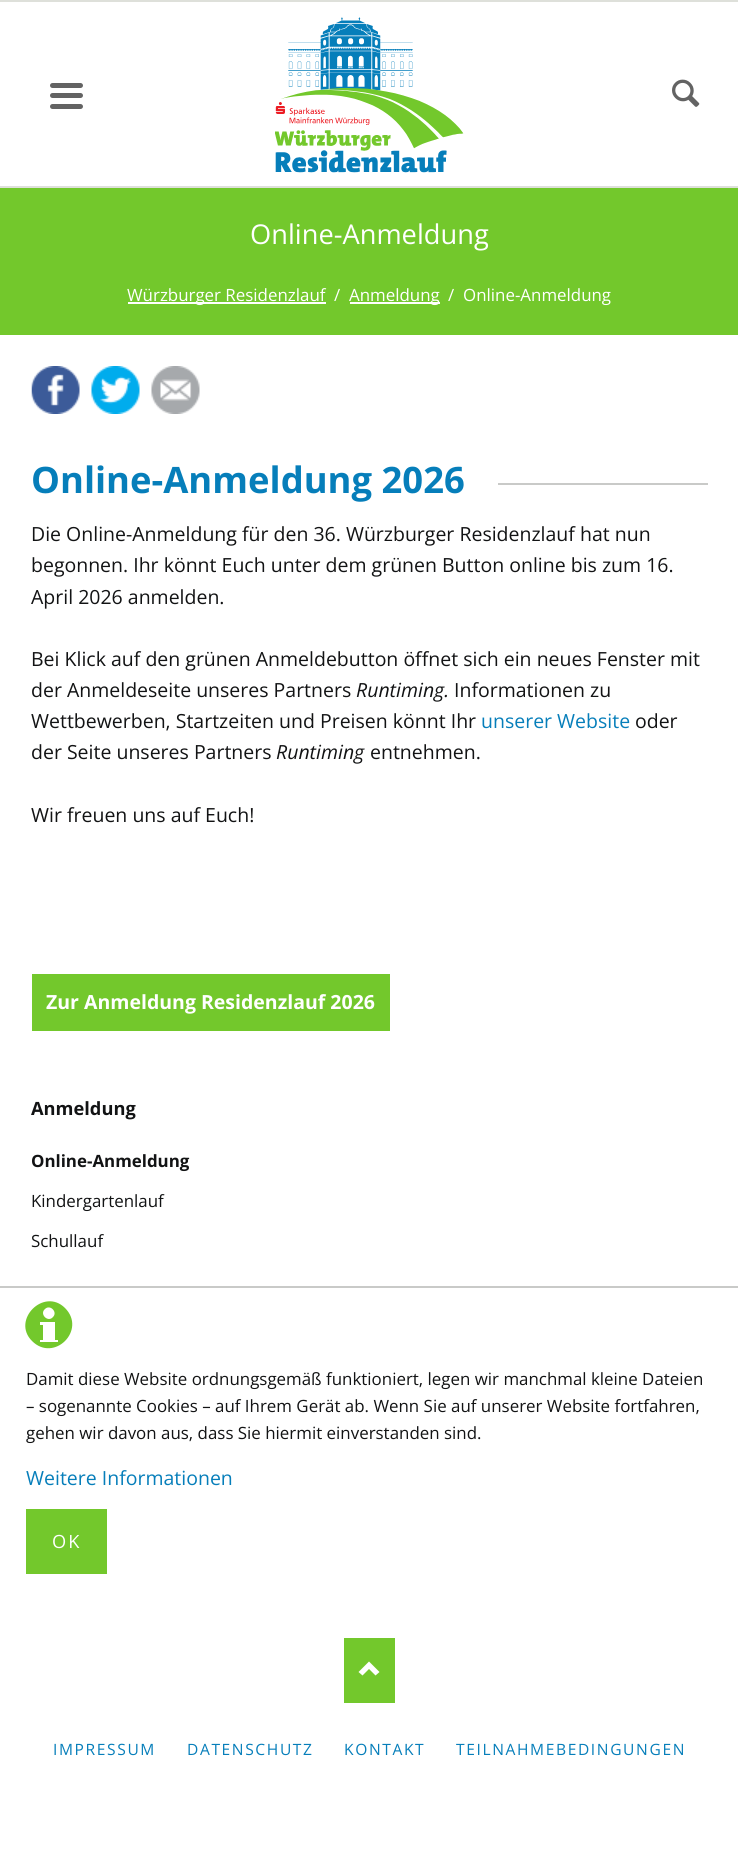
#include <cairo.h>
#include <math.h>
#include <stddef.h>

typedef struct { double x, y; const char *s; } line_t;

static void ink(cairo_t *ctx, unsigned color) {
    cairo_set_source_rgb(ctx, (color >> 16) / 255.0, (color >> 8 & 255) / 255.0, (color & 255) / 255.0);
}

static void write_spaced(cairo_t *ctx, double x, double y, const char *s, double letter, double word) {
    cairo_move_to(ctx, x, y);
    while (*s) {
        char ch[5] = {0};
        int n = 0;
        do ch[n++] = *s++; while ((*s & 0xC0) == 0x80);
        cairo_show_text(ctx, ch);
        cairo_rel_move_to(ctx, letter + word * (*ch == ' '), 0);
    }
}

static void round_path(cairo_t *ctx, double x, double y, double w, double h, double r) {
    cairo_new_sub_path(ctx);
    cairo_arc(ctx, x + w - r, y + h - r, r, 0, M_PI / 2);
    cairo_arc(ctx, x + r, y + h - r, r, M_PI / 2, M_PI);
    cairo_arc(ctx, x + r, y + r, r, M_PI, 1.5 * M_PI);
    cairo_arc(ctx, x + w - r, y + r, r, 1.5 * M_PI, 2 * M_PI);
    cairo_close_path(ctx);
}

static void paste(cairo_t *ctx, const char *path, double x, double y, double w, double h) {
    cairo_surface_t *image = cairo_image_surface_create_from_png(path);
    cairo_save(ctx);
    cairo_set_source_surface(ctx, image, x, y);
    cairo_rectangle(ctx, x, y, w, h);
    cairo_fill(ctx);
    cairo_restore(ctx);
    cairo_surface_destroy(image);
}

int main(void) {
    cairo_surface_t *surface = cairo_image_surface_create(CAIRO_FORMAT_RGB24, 738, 1855);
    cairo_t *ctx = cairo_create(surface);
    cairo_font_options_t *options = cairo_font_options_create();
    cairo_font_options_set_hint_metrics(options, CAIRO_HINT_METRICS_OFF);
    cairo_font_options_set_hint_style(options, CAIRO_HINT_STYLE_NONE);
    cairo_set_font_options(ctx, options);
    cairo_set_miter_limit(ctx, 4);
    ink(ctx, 0xFFFFFF);
    cairo_paint(ctx);
    ink(ctx, 0xDEE0DA);
    cairo_rectangle(ctx, 0, 0, 738, 2);
    cairo_fill(ctx);
    cairo_rectangle(ctx, 0, 186, 738, 2);
    cairo_fill(ctx);
    ink(ctx, 0x636363);
    round_path(ctx, 50, 104, 33, 5, 2.5);
    cairo_fill(ctx);
    round_path(ctx, 50, 93, 33, 5, 2.5);
    cairo_fill(ctx);
    round_path(ctx, 50, 83, 33, 5, 2.5);
    cairo_fill(ctx);
    paste(ctx, "media/1.png", 275, 17, 189, 156);
    paste(ctx, "media/2.png", 672, 79, 28, 28);
    ink(ctx, 0x73C82C);
    cairo_rectangle(ctx, 0, 188, 738, 147);
    cairo_fill(ctx);
    cairo_select_font_face(ctx, "Open Sans", CAIRO_FONT_SLANT_NORMAL, CAIRO_FONT_WEIGHT_NORMAL);
    cairo_set_font_size(ctx, 27.25);
    ink(ctx, 0xFFFFFF);
    cairo_move_to(ctx, 250, 244);
    cairo_show_text(ctx, "Online-Anmeldung");
    cairo_rectangle(ctx, 128, 302, 198, 2);
    cairo_fill(ctx);
    cairo_set_font_size(ctx, 16.9);
    cairo_move_to(ctx, 127, 301);
    cairo_show_text(ctx, "Würzburger Residenzlauf");
    cairo_move_to(ctx, 334, 301);
    cairo_show_text(ctx, "/");
    cairo_rectangle(ctx, 350, 302, 90, 2);
    cairo_fill(ctx);
    {
        static const line_t items[] = {
            {349, 301, "Anmeldung"},
            {448, 301, "/"},
            {463, 301, "Online-Anmeldung"},
        };
        for (size_t i = 0; i < sizeof items / sizeof *items; i++) {
            cairo_move_to(ctx, items[i].x, items[i].y);
            cairo_show_text(ctx, items[i].s);
        }
    }
    paste(ctx, "media/3.png", 31, 366, 49, 48);
    paste(ctx, "media/4.png", 91, 366, 49, 48);
    paste(ctx, "media/5.png", 151, 366, 49, 48);
    cairo_select_font_face(ctx, "Open Sans", CAIRO_FONT_SLANT_NORMAL, CAIRO_FONT_WEIGHT_BOLD);
    cairo_set_font_size(ctx, 36.4);
    ink(ctx, 0x067EBA);
    cairo_move_to(ctx, 31, 493);
    cairo_show_text(ctx, "Online-Anmeldung 2026");
    ink(ctx, 0xC9CAC8);
    cairo_rectangle(ctx, 498, 483, 210, 2);
    cairo_fill(ctx);
    cairo_select_font_face(ctx, "Open Sans", CAIRO_FONT_SLANT_NORMAL, CAIRO_FONT_WEIGHT_NORMAL);
    cairo_set_font_size(ctx, 19.5);
    ink(ctx, 0x121314);
    {
        static const line_t items[] = {
            {31, 541, "Die Online-Anmeldung für den 36. Würzburger Residenzlauf hat nun"},
            {31, 572, "begonnen. Ihr könnt Euch unter dem grünen Button online bis zum 16."},
            {31, 604, "April 2026 anmelden."},
            {31, 666, "Bei Klick auf den grünen Anmeldebutton öffnet sich ein neues Fenster mit"},
            {31, 697, "der Anmeldeseite unseres Partners"},
        };
        for (size_t i = 0; i < sizeof items / sizeof *items; i++) {
            cairo_move_to(ctx, items[i].x, items[i].y);
            cairo_show_text(ctx, items[i].s);
        }
    }
    cairo_select_font_face(ctx, "Open Sans", CAIRO_FONT_SLANT_ITALIC, CAIRO_FONT_WEIGHT_NORMAL);
    cairo_move_to(ctx, 356, 697);
    cairo_show_text(ctx, "Runtiming.");
    cairo_select_font_face(ctx, "Open Sans", CAIRO_FONT_SLANT_NORMAL, CAIRO_FONT_WEIGHT_NORMAL);
    cairo_move_to(ctx, 454, 697);
    cairo_show_text(ctx, "Informationen zu");
    cairo_move_to(ctx, 31, 728);
    cairo_show_text(ctx, "Wettbewerben, Startzeiten und Preisen könnt Ihr");
    ink(ctx, 0x067EBA);
    cairo_move_to(ctx, 481, 728);
    cairo_show_text(ctx, "unserer Website");
    ink(ctx, 0x121314);
    cairo_move_to(ctx, 635, 728);
    cairo_show_text(ctx, "oder");
    cairo_move_to(ctx, 31, 759);
    cairo_show_text(ctx, "der Seite unseres Partners");
    cairo_select_font_face(ctx, "Open Sans", CAIRO_FONT_SLANT_ITALIC, CAIRO_FONT_WEIGHT_NORMAL);
    cairo_move_to(ctx, 276, 759);
    cairo_show_text(ctx, "Runtiming");
    cairo_select_font_face(ctx, "Open Sans", CAIRO_FONT_SLANT_NORMAL, CAIRO_FONT_WEIGHT_NORMAL);
    cairo_move_to(ctx, 370, 759);
    cairo_show_text(ctx, "entnehmen.");
    cairo_move_to(ctx, 31, 822);
    cairo_show_text(ctx, "Wir freuen uns auf Euch!");
    ink(ctx, 0x73C82C);
    cairo_rectangle(ctx, 32, 974, 358, 57);
    cairo_fill(ctx);
    cairo_select_font_face(ctx, "Open Sans", CAIRO_FONT_SLANT_NORMAL, CAIRO_FONT_WEIGHT_BOLD);
    ink(ctx, 0xFFFFFF);
    cairo_move_to(ctx, 46, 1009);
    cairo_show_text(ctx, "Zur Anmeldung Residenzlauf 2026");
    cairo_set_font_size(ctx, 18.25);
    ink(ctx, 0x121314);
    cairo_move_to(ctx, 31, 1115);
    cairo_show_text(ctx, "Anmeldung");
    cairo_set_font_size(ctx, 16.9);
    cairo_move_to(ctx, 31, 1167);
    cairo_show_text(ctx, "Online-Anmeldung");
    cairo_select_font_face(ctx, "Open Sans", CAIRO_FONT_SLANT_NORMAL, CAIRO_FONT_WEIGHT_NORMAL);
    cairo_move_to(ctx, 31, 1207);
    cairo_show_text(ctx, "Kindergartenlauf");
    cairo_move_to(ctx, 31, 1247);
    cairo_show_text(ctx, "Schullauf");
    ink(ctx, 0xC9CAC8);
    cairo_rectangle(ctx, 0, 1286, 738, 2);
    cairo_fill(ctx);
    ink(ctx, 0x73C82C);
    cairo_new_path(ctx);
    cairo_move_to(ctx, 65, 1308);
    cairo_curve_to(ctx, 44, 1287, 11, 1320, 32, 1341);
    cairo_curve_to(ctx, 54, 1363, 87, 1330, 65, 1308);
    cairo_close_path(ctx);
    cairo_move_to(ctx, 45, 1309);
    cairo_curve_to(ctx, 50, 1304, 58, 1312, 53, 1317);
    cairo_curve_to(ctx, 48, 1323, 39, 1314, 45, 1309);
    cairo_close_path(ctx);
    cairo_move_to(ctx, 58, 1342);
    cairo_line_to(ctx, 40, 1342);
    cairo_line_to(ctx, 40, 1340);
    cairo_line_to(ctx, 43, 1340);
    cairo_line_to(ctx, 43, 1325);
    cairo_line_to(ctx, 40, 1325);
    cairo_line_to(ctx, 40, 1322);
    cairo_line_to(ctx, 55, 1322);
    cairo_line_to(ctx, 55, 1340);
    cairo_line_to(ctx, 58, 1340);
    cairo_close_path(ctx);
    cairo_fill(ctx);
    ink(ctx, 0x121314);
    {
        static const line_t items[] = {
            {26, 1385, "Damit diese Website ordnungsgemäß funktioniert, legen wir manchmal kleine Dateien"},
            {26, 1412, "– sogenannte Cookies – auf Ihrem Gerät ab. Wenn Sie auf unserer Website fortfahren,"},
            {26, 1439, "gehen wir davon aus, dass Sie hiermit einverstanden sind."},
        };
        for (size_t i = 0; i < sizeof items / sizeof *items; i++) {
            cairo_move_to(ctx, items[i].x, items[i].y);
            cairo_show_text(ctx, items[i].s);
        }
    }
    cairo_set_font_size(ctx, 19.5);
    ink(ctx, 0x067EBA);
    cairo_move_to(ctx, 26, 1485);
    cairo_show_text(ctx, "Weitere Informationen");
    ink(ctx, 0x73C82C);
    cairo_rectangle(ctx, 26, 1509, 81, 65);
    cairo_fill(ctx);
    cairo_set_font_size(ctx, 18.25);
    ink(ctx, 0xFFFFFF);
    write_spaced(ctx, 52, 1548, "OK", 2, 0);
    ink(ctx, 0x73C82C);
    cairo_rectangle(ctx, 344, 1638, 51, 65);
    cairo_fill(ctx);
    ink(ctx, 0xFFFFFF);
    cairo_new_path(ctx);
    cairo_move_to(ctx, 358.5, 1672);
    cairo_line_to(ctx, 362.5, 1675.5);
    cairo_line_to(ctx, 369, 1669);
    cairo_line_to(ctx, 375.5, 1675.5);
    cairo_line_to(ctx, 379.5, 1672);
    cairo_line_to(ctx, 369, 1661.5);
    cairo_close_path(ctx);
    cairo_fill(ctx);
    cairo_set_font_size(ctx, 15.6);
    ink(ctx, 0x067EBA);
    {
        static const line_t items[] = {
            {53, 1755, "IMPRESSUM"},
            {187, 1755, "DATENSCHUTZ"},
            {344, 1755, "KONTAKT"},
            {456, 1755, "TEILNAHMEBEDINGUNGEN"},
        };
        for (size_t i = 0; i < sizeof items / sizeof *items; i++) {
            write_spaced(ctx, items[i].x, items[i].y, items[i].s, 1.6, 0);
        }
    }
    cairo_surface_write_to_png(surface, "image.png");
    cairo_font_options_destroy(options);
    cairo_destroy(ctx);
    cairo_surface_destroy(surface);
    return 0;
}
